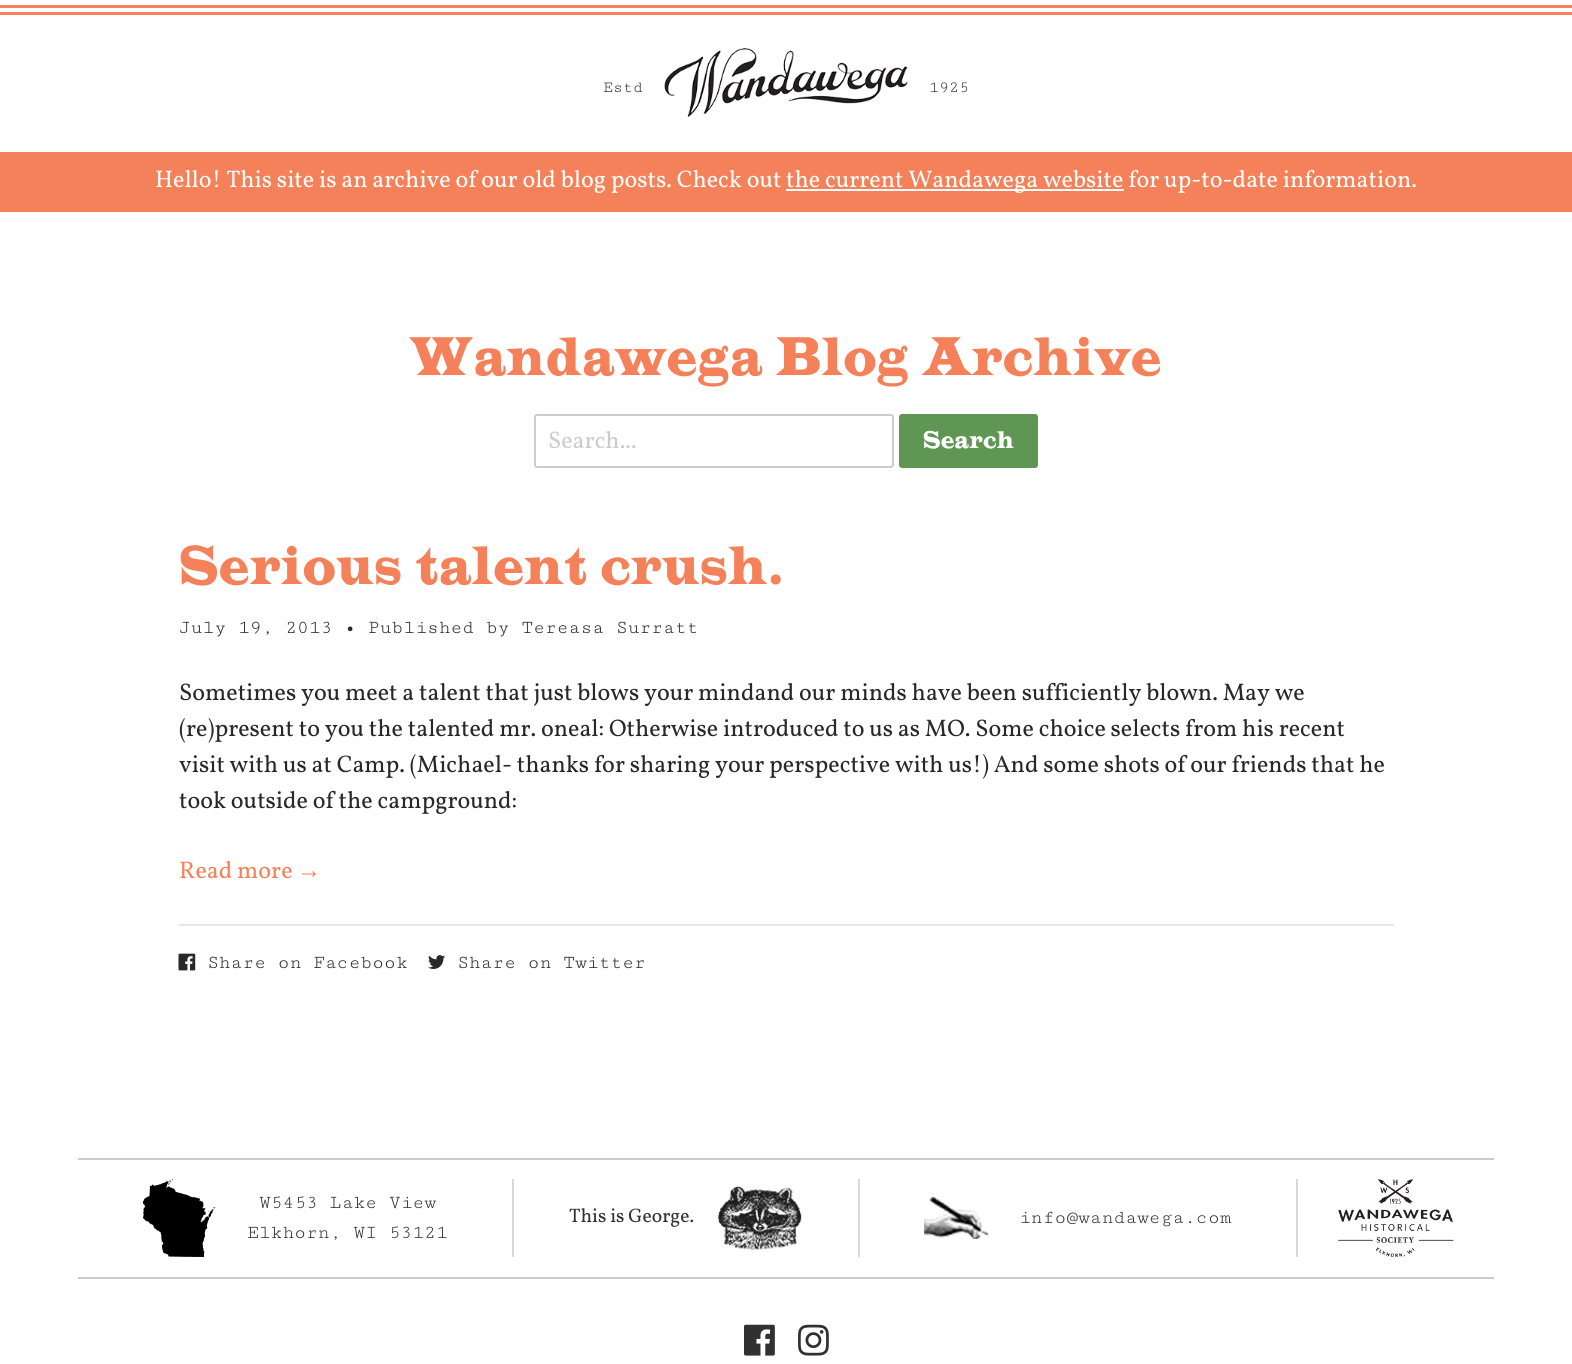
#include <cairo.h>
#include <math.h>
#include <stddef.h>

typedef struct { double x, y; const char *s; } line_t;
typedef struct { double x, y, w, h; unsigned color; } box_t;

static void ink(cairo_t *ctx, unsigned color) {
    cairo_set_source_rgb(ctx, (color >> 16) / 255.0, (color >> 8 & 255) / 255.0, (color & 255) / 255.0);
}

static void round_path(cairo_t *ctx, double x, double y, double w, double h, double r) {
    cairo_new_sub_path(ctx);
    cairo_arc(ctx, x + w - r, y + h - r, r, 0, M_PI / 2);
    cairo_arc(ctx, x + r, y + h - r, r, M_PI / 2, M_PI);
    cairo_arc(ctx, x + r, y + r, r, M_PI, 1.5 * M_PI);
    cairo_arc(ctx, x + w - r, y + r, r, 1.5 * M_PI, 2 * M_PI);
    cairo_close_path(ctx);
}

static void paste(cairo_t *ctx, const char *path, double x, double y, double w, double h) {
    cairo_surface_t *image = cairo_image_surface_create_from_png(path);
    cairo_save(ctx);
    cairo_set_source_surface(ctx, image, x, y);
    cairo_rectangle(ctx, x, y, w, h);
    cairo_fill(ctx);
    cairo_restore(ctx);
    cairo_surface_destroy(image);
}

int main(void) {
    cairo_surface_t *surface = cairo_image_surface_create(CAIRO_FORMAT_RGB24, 1572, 1364);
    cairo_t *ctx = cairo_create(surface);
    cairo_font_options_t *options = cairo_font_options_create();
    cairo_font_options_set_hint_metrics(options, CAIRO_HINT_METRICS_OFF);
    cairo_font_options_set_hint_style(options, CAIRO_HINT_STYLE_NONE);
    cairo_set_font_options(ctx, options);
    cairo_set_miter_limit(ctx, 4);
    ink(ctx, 0xFFFFFF);
    cairo_paint(ctx);
    ink(ctx, 0xF48159);
    cairo_rectangle(ctx, 0, 5, 1572, 3);
    cairo_fill(ctx);
    cairo_rectangle(ctx, 0, 12, 1572, 3);
    cairo_fill(ctx);
    cairo_select_font_face(ctx, "Cutive Mono", CAIRO_FONT_SLANT_NORMAL, CAIRO_FONT_WEIGHT_NORMAL);
    cairo_set_font_size(ctx, 16.5);
    ink(ctx, 0x313131);
    cairo_move_to(ctx, 603, 92);
    cairo_show_text(ctx, "Estd");
    paste(ctx, "media/1.png", 664, 48, 244, 69);
    cairo_move_to(ctx, 929, 92);
    cairo_show_text(ctx, "1925");
    ink(ctx, 0xF48159);
    cairo_rectangle(ctx, 0, 152, 1572, 60);
    cairo_fill(ctx);
    cairo_select_font_face(ctx, "Vollkorn", CAIRO_FONT_SLANT_NORMAL, CAIRO_FONT_WEIGHT_NORMAL);
    cairo_set_font_size(ctx, 24);
    ink(ctx, 0xFFFFFF);
    cairo_move_to(ctx, 155, 187);
    cairo_show_text(ctx, "Hello! This site is an archive of our old blog posts. Check out");
    cairo_rectangle(ctx, 786, 189, 338, 2);
    cairo_fill(ctx);
    cairo_move_to(ctx, 786, 187);
    cairo_show_text(ctx, "the current Wandawega website for up-to-date information.");
    cairo_select_font_face(ctx, "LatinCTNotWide", CAIRO_FONT_SLANT_NORMAL, CAIRO_FONT_WEIGHT_NORMAL);
    cairo_set_font_size(ctx, 54);
    ink(ctx, 0xF48159);
    cairo_move_to(ctx, 410, 375);
    cairo_show_text(ctx, "Wandawega Blog Archive");
    round_path(ctx, 535, 415, 358, 52, 2);
    ink(ctx, 0xCCCCCC);
    cairo_stroke(ctx);
    cairo_select_font_face(ctx, "Vollkorn", CAIRO_FONT_SLANT_NORMAL, CAIRO_FONT_WEIGHT_NORMAL);
    cairo_set_font_size(ctx, 24);
    cairo_move_to(ctx, 548, 448);
    cairo_show_text(ctx, "Search...");
    ink(ctx, 0x5F9654);
    round_path(ctx, 899, 414, 139, 54, 3);
    cairo_fill(ctx);
    cairo_select_font_face(ctx, "LatinCTNotWide", CAIRO_FONT_SLANT_NORMAL, CAIRO_FONT_WEIGHT_NORMAL);
    ink(ctx, 0xFFFFFF);
    cairo_move_to(ctx, 923, 448);
    cairo_show_text(ctx, "Search");
    cairo_set_font_size(ctx, 54);
    ink(ctx, 0xF48159);
    cairo_move_to(ctx, 179, 584);
    cairo_show_text(ctx, "Serious talent crush.");
    cairo_select_font_face(ctx, "Cutive Mono", CAIRO_FONT_SLANT_NORMAL, CAIRO_FONT_WEIGHT_NORMAL);
    cairo_set_font_size(ctx, 19.5);
    ink(ctx, 0x282828);
    cairo_move_to(ctx, 179, 633);
    cairo_show_text(ctx, "July 19, 2013 • Published by Tereasa Surratt");
    cairo_select_font_face(ctx, "Vollkorn", CAIRO_FONT_SLANT_NORMAL, CAIRO_FONT_WEIGHT_NORMAL);
    cairo_set_font_size(ctx, 24);
    {
        static const line_t items[] = {
            {179, 700, "Sometimes you meet a talent that just blows your mindand our minds have been sufficiently blown. May we"},
            {179, 736, "(re)present to you the talented mr. oneal: Otherwise introduced to us as MO. Some choice selects from his recent"},
            {179, 772, "visit with us at Camp. (Michael- thanks for sharing your perspective with us!) And some shots of our friends that he"},
            {179, 808, "took outside of the campground:"},
        };
        for (size_t i = 0; i < sizeof items / sizeof *items; i++) {
            cairo_move_to(ctx, items[i].x, items[i].y);
            cairo_show_text(ctx, items[i].s);
        }
    }
    ink(ctx, 0xF48159);
    cairo_move_to(ctx, 179, 878);
    cairo_show_text(ctx, "Read more");
    cairo_select_font_face(ctx, "Liberation Serif", CAIRO_FONT_SLANT_NORMAL, CAIRO_FONT_WEIGHT_NORMAL);
    cairo_move_to(ctx, 297, 878);
    cairo_show_text(ctx, "→");
    ink(ctx, 0xE8E8E8);
    cairo_rectangle(ctx, 179, 924, 1215, 2);
    cairo_fill(ctx);
    paste(ctx, "media/2.png", 178, 953, 18, 18);
    cairo_select_font_face(ctx, "Cutive Mono", CAIRO_FONT_SLANT_NORMAL, CAIRO_FONT_WEIGHT_NORMAL);
    cairo_set_font_size(ctx, 19.5);
    ink(ctx, 0x282828);
    cairo_move_to(ctx, 207, 968);
    cairo_show_text(ctx, "Share on Facebook");
    paste(ctx, "media/3.png", 428, 955, 17, 14);
    cairo_move_to(ctx, 457, 968);
    cairo_show_text(ctx, "Share on Twitter");
    {
        static const box_t items[] = {
            {78, 1158, 1416, 2, 0xCCCCCC},
            {78, 1277, 1416, 2, 0xCCCCCC},
            {512, 1179, 2, 78, 0xD9D9D9},
        };
        for (size_t i = 0; i < sizeof items / sizeof *items; i++) {
            ink(ctx, items[i].color);
            cairo_rectangle(ctx, items[i].x, items[i].y, items[i].w, items[i].h);
            cairo_fill(ctx);
        }
    }
    paste(ctx, "media/4.png", 143, 1179, 73, 78);
    ink(ctx, 0x313131);
    cairo_move_to(ctx, 259, 1208);
    cairo_show_text(ctx, "W5453 Lake View");
    cairo_move_to(ctx, 247, 1238);
    cairo_show_text(ctx, "Elkhorn, WI 53121");
    ink(ctx, 0xD9D9D9);
    cairo_rectangle(ctx, 858, 1179, 2, 78);
    cairo_fill(ctx);
    cairo_select_font_face(ctx, "Vollkorn", CAIRO_FONT_SLANT_NORMAL, CAIRO_FONT_WEIGHT_NORMAL);
    ink(ctx, 0x313131);
    cairo_move_to(ctx, 569, 1222);
    cairo_show_text(ctx, "This is George.");
    paste(ctx, "media/5.png", 717, 1185, 85, 66);
    ink(ctx, 0xD9D9D9);
    cairo_rectangle(ctx, 1296, 1179, 2, 78);
    cairo_fill(ctx);
    paste(ctx, "media/6.png", 924, 1197, 65, 42);
    cairo_select_font_face(ctx, "Cutive Mono", CAIRO_FONT_SLANT_NORMAL, CAIRO_FONT_WEIGHT_NORMAL);
    ink(ctx, 0x313131);
    cairo_move_to(ctx, 1019, 1223);
    cairo_show_text(ctx, "info@wandawega.com");
    paste(ctx, "media/7.png", 1338, 1179, 116, 78);
    paste(ctx, "media/8.png", 744, 1324, 31, 32);
    paste(ctx, "media/9.png", 798, 1324, 31, 32);
    cairo_surface_write_to_png(surface, "image.png");
    cairo_font_options_destroy(options);
    cairo_destroy(ctx);
    cairo_surface_destroy(surface);
    return 0;
}
